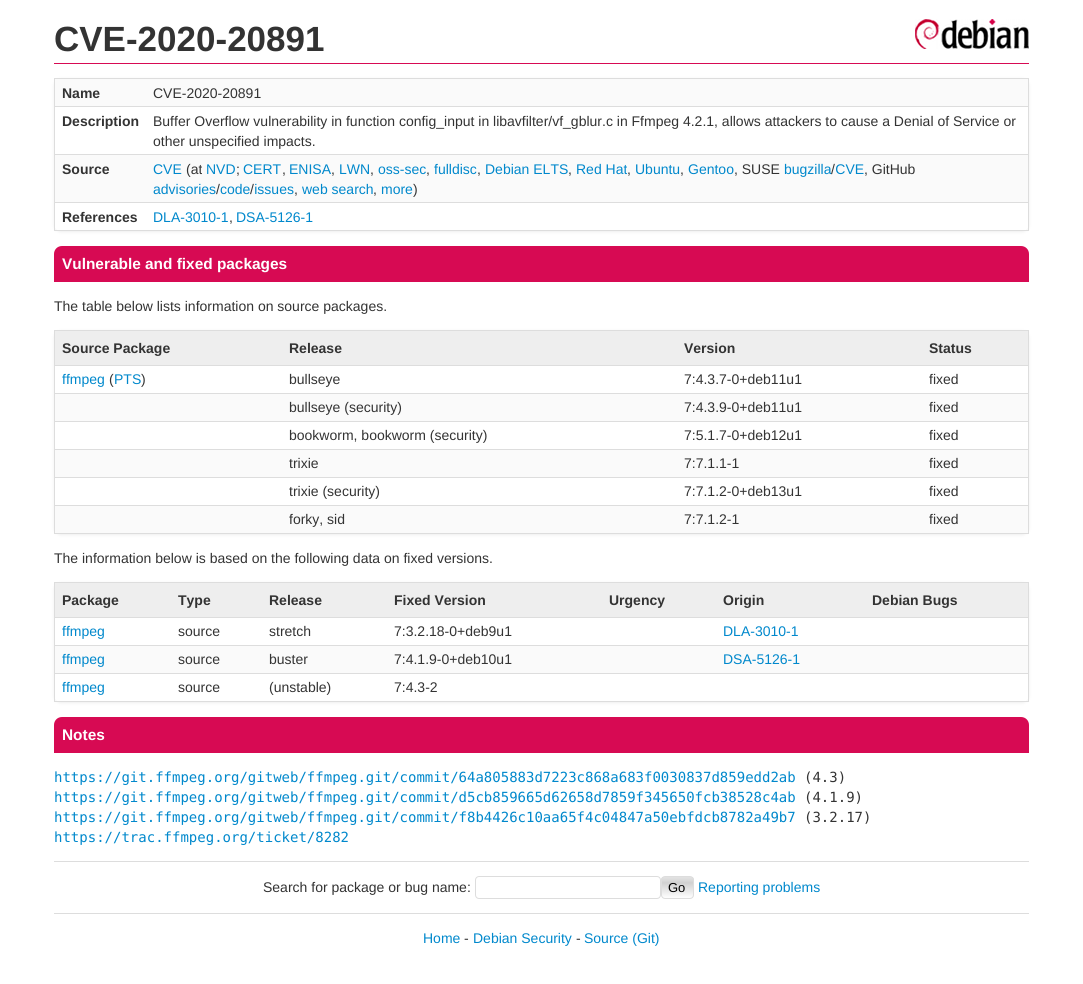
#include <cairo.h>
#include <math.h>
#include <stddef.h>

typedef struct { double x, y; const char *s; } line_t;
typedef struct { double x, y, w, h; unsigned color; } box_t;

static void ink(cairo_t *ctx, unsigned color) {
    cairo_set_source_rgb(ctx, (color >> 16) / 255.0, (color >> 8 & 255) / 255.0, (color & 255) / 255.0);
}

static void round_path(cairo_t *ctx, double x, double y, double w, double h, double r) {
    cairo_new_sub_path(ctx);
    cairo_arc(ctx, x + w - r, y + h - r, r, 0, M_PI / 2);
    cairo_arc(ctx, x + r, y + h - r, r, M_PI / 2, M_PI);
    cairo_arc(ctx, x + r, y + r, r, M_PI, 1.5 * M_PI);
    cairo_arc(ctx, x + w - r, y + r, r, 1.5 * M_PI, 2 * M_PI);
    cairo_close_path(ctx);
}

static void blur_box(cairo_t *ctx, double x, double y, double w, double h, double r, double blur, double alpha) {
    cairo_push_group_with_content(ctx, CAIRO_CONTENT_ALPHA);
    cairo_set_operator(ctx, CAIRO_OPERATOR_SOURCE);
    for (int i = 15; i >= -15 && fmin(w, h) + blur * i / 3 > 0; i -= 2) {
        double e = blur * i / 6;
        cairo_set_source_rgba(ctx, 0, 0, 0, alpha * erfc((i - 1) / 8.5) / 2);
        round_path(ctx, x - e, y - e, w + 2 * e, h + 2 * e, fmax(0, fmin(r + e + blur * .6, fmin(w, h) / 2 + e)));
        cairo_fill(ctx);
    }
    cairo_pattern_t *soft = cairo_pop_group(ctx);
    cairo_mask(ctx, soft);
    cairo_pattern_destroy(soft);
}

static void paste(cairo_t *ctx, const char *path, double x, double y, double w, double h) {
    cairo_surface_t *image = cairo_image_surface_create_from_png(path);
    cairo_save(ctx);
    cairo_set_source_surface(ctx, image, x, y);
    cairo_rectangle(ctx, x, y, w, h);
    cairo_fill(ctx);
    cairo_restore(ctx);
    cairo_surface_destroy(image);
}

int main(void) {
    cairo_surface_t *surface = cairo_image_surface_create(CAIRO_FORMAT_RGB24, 1083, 984);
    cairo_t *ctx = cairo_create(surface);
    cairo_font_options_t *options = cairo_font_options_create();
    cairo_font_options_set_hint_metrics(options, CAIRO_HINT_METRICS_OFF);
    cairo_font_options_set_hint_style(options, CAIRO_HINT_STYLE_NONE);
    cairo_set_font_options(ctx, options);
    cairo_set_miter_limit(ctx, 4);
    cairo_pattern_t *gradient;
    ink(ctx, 0xFFFFFF);
    cairo_paint(ctx);
    paste(ctx, "media/1.png", 915, 19, 114, 30);
    ink(ctx, 0xD70A53);
    cairo_rectangle(ctx, 54, 63, 975, 1);
    cairo_fill(ctx);
    cairo_select_font_face(ctx, "Liberation Sans", CAIRO_FONT_SLANT_NORMAL, CAIRO_FONT_WEIGHT_BOLD);
    cairo_set_font_size(ctx, 35);
    ink(ctx, 0x333333);
    cairo_move_to(ctx, 54, 51);
    cairo_show_text(ctx, "CVE-2020-20891");
    cairo_save(ctx);
    cairo_set_fill_rule(ctx, CAIRO_FILL_RULE_EVEN_ODD);
    cairo_new_path(ctx);
    cairo_move_to(ctx, 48, 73);
    cairo_line_to(ctx, 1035, 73);
    cairo_line_to(ctx, 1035, 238);
    cairo_line_to(ctx, 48, 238);
    cairo_close_path(ctx);
    cairo_move_to(ctx, 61, 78);
    cairo_line_to(ctx, 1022, 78);
    cairo_curve_to(ctx, 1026, 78, 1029, 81, 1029, 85);
    cairo_line_to(ctx, 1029, 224);
    cairo_curve_to(ctx, 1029, 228, 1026, 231, 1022, 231);
    cairo_line_to(ctx, 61, 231);
    cairo_curve_to(ctx, 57, 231, 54, 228, 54, 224);
    cairo_line_to(ctx, 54, 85);
    cairo_curve_to(ctx, 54, 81, 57, 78, 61, 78);
    cairo_close_path(ctx);
    cairo_clip(ctx);
    ink(ctx, 0xEEEEEE);
    blur_box(ctx, 54, 79, 975, 153, 7, 1.5, 1);
    cairo_restore(ctx);
    {
        static const box_t items[] = {
            {54, 78, 975, 1, 0xDDDDDD},
            {1028, 78, 1, 153, 0xDDDDDD},
            {54, 230, 975, 1, 0xDDDDDD},
            {54, 78, 1, 153, 0xDDDDDD},
            {55, 79, 973, 27, 0xFAFAFA},
        };
        for (size_t i = 0; i < sizeof items / sizeof *items; i++) {
            ink(ctx, items[i].color);
            cairo_rectangle(ctx, items[i].x, items[i].y, items[i].w, items[i].h);
            cairo_fill(ctx);
        }
    }
    cairo_set_font_size(ctx, 14);
    ink(ctx, 0x333333);
    cairo_move_to(ctx, 62, 98);
    cairo_show_text(ctx, "Name");
    ink(ctx, 0xDDDDDD);
    cairo_rectangle(ctx, 54, 106, 975, 1);
    cairo_fill(ctx);
    cairo_select_font_face(ctx, "Liberation Sans", CAIRO_FONT_SLANT_NORMAL, CAIRO_FONT_WEIGHT_NORMAL);
    ink(ctx, 0x333333);
    cairo_move_to(ctx, 153, 98);
    cairo_show_text(ctx, "CVE-2020-20891");
    cairo_select_font_face(ctx, "Liberation Sans", CAIRO_FONT_SLANT_NORMAL, CAIRO_FONT_WEIGHT_BOLD);
    cairo_move_to(ctx, 62, 126);
    cairo_show_text(ctx, "Description");
    ink(ctx, 0xDDDDDD);
    cairo_rectangle(ctx, 54, 154, 975, 1);
    cairo_fill(ctx);
    cairo_select_font_face(ctx, "Liberation Sans", CAIRO_FONT_SLANT_NORMAL, CAIRO_FONT_WEIGHT_NORMAL);
    ink(ctx, 0x333333);
    cairo_move_to(ctx, 153, 126);
    cairo_show_text(ctx, "Buffer Overflow vulnerability in function config_input in libavfilter/vf_gblur.c in Ffmpeg 4.2.1, allows attackers to cause a Denial of Service or");
    cairo_move_to(ctx, 153, 146);
    cairo_show_text(ctx, "other unspecified impacts.");
    ink(ctx, 0xFAFAFA);
    cairo_rectangle(ctx, 55, 155, 973, 47);
    cairo_fill(ctx);
    cairo_select_font_face(ctx, "Liberation Sans", CAIRO_FONT_SLANT_NORMAL, CAIRO_FONT_WEIGHT_BOLD);
    ink(ctx, 0x333333);
    cairo_move_to(ctx, 62, 174);
    cairo_show_text(ctx, "Source");
    ink(ctx, 0xDDDDDD);
    cairo_rectangle(ctx, 54, 202, 975, 1);
    cairo_fill(ctx);
    cairo_select_font_face(ctx, "Liberation Sans", CAIRO_FONT_SLANT_NORMAL, CAIRO_FONT_WEIGHT_NORMAL);
    ink(ctx, 0x333333);
    cairo_move_to(ctx, 186, 174);
    cairo_show_text(ctx, "(at");
    ink(ctx, 0x0088CC);
    {
        static const line_t items[] = {
            {434, 174, "fulldisc"},
            {485, 174, "Debian ELTS"},
            {576, 174, "Red Hat"},
            {635, 174, "Ubuntu"},
            {784, 174, "bugzilla CVE"},
            {153, 174, "CVE"},
            {206, 174, "NVD"},
        };
        for (size_t i = 0; i < sizeof items / sizeof *items; i++) {
            cairo_move_to(ctx, items[i].x, items[i].y);
            cairo_show_text(ctx, items[i].s);
        }
    }
    ink(ctx, 0x333333);
    cairo_move_to(ctx, 236, 174);
    cairo_show_text(ctx, ";");
    ink(ctx, 0x0088CC);
    cairo_move_to(ctx, 243, 174);
    cairo_show_text(ctx, "CERT");
    ink(ctx, 0x333333);
    cairo_move_to(ctx, 282, 174);
    cairo_show_text(ctx, ",");
    ink(ctx, 0x0088CC);
    cairo_move_to(ctx, 289, 174);
    cairo_show_text(ctx, "ENISA");
    ink(ctx, 0x333333);
    cairo_move_to(ctx, 331, 174);
    cairo_show_text(ctx, ",");
    ink(ctx, 0x0088CC);
    cairo_move_to(ctx, 339, 174);
    cairo_show_text(ctx, "LWN");
    ink(ctx, 0x333333);
    cairo_move_to(ctx, 370, 174);
    cairo_show_text(ctx, ",");
    ink(ctx, 0x0088CC);
    cairo_move_to(ctx, 378, 174);
    cairo_show_text(ctx, "oss-sec");
    ink(ctx, 0x333333);
    {
        static const line_t items[] = {
            {426, 174, ","},
            {477, 174, ","},
            {568, 174, ","},
            {627, 174, ","},
            {680, 174, ","},
        };
        for (size_t i = 0; i < sizeof items / sizeof *items; i++) {
            cairo_move_to(ctx, items[i].x, items[i].y);
            cairo_show_text(ctx, items[i].s);
        }
    }
    ink(ctx, 0x0088CC);
    cairo_move_to(ctx, 688, 174);
    cairo_show_text(ctx, "Gentoo");
    ink(ctx, 0x333333);
    {
        static const line_t items[] = {
            {734, 174, ", SUSE"},
            {831, 174, "/"},
            {864, 174, ", GitHub"},
        };
        for (size_t i = 0; i < sizeof items / sizeof *items; i++) {
            cairo_move_to(ctx, items[i].x, items[i].y);
            cairo_show_text(ctx, items[i].s);
        }
    }
    ink(ctx, 0x0088CC);
    cairo_move_to(ctx, 153, 194);
    cairo_show_text(ctx, "advisories");
    ink(ctx, 0x333333);
    cairo_move_to(ctx, 216, 194);
    cairo_show_text(ctx, "/");
    ink(ctx, 0x0088CC);
    cairo_move_to(ctx, 220, 194);
    cairo_show_text(ctx, "code issues");
    ink(ctx, 0x333333);
    cairo_move_to(ctx, 250, 194);
    cairo_show_text(ctx, "/");
    cairo_move_to(ctx, 294, 194);
    cairo_show_text(ctx, ",");
    ink(ctx, 0x0088CC);
    cairo_move_to(ctx, 302, 194);
    cairo_show_text(ctx, "web search");
    ink(ctx, 0x333333);
    cairo_move_to(ctx, 373, 194);
    cairo_show_text(ctx, ",");
    ink(ctx, 0x0088CC);
    cairo_move_to(ctx, 381, 194);
    cairo_show_text(ctx, "more");
    ink(ctx, 0x333333);
    cairo_move_to(ctx, 413, 194);
    cairo_show_text(ctx, ")");
    cairo_select_font_face(ctx, "Liberation Sans", CAIRO_FONT_SLANT_NORMAL, CAIRO_FONT_WEIGHT_BOLD);
    cairo_move_to(ctx, 62, 222);
    cairo_show_text(ctx, "References");
    cairo_select_font_face(ctx, "Liberation Sans", CAIRO_FONT_SLANT_NORMAL, CAIRO_FONT_WEIGHT_NORMAL);
    ink(ctx, 0x0088CC);
    cairo_move_to(ctx, 153, 222);
    cairo_show_text(ctx, "DLA-3010-1");
    ink(ctx, 0x333333);
    cairo_move_to(ctx, 229, 222);
    cairo_show_text(ctx, ",");
    ink(ctx, 0x0088CC);
    cairo_move_to(ctx, 236, 222);
    cairo_show_text(ctx, "DSA-5126-1");
    ink(ctx, 0xD70A53);
    cairo_new_path(ctx);
    cairo_move_to(ctx, 62, 246);
    cairo_line_to(ctx, 1021, 246);
    cairo_curve_to(ctx, 1025.5, 246, 1029, 249.5, 1029, 254);
    cairo_line_to(ctx, 1029, 282);
    cairo_line_to(ctx, 54, 282);
    cairo_line_to(ctx, 54, 254);
    cairo_curve_to(ctx, 54, 249.5, 57.5, 246, 62, 246);
    cairo_close_path(ctx);
    cairo_fill(ctx);
    cairo_select_font_face(ctx, "Liberation Sans", CAIRO_FONT_SLANT_NORMAL, CAIRO_FONT_WEIGHT_BOLD);
    cairo_set_font_size(ctx, 15.4);
    ink(ctx, 0xFFFFFF);
    cairo_move_to(ctx, 62, 269);
    cairo_show_text(ctx, "Vulnerable and fixed packages");
    cairo_select_font_face(ctx, "Liberation Sans", CAIRO_FONT_SLANT_NORMAL, CAIRO_FONT_WEIGHT_NORMAL);
    cairo_set_font_size(ctx, 14);
    ink(ctx, 0x333333);
    cairo_move_to(ctx, 54, 311);
    cairo_show_text(ctx, "The table below lists information on source packages.");
    cairo_save(ctx);
    cairo_set_fill_rule(ctx, CAIRO_FILL_RULE_EVEN_ODD);
    cairo_new_path(ctx);
    cairo_move_to(ctx, 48, 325);
    cairo_line_to(ctx, 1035, 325);
    cairo_line_to(ctx, 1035, 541);
    cairo_line_to(ctx, 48, 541);
    cairo_close_path(ctx);
    cairo_move_to(ctx, 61, 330);
    cairo_line_to(ctx, 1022, 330);
    cairo_curve_to(ctx, 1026, 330, 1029, 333, 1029, 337);
    cairo_line_to(ctx, 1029, 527);
    cairo_curve_to(ctx, 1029, 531, 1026, 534, 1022, 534);
    cairo_line_to(ctx, 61, 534);
    cairo_curve_to(ctx, 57, 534, 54, 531, 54, 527);
    cairo_line_to(ctx, 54, 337);
    cairo_curve_to(ctx, 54, 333, 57, 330, 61, 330);
    cairo_close_path(ctx);
    cairo_clip(ctx);
    ink(ctx, 0xEEEEEE);
    blur_box(ctx, 54, 331, 975, 204, 7, 1.5, 1);
    cairo_restore(ctx);
    {
        static const box_t items[] = {
            {54, 330, 975, 1, 0xDDDDDD},
            {1028, 330, 1, 204, 0xDDDDDD},
            {54, 533, 975, 1, 0xDDDDDD},
            {54, 330, 1, 204, 0xDDDDDD},
            {55, 331, 973, 34, 0xEEEEEE},
        };
        for (size_t i = 0; i < sizeof items / sizeof *items; i++) {
            ink(ctx, items[i].color);
            cairo_rectangle(ctx, items[i].x, items[i].y, items[i].w, items[i].h);
            cairo_fill(ctx);
        }
    }
    cairo_select_font_face(ctx, "Liberation Sans", CAIRO_FONT_SLANT_NORMAL, CAIRO_FONT_WEIGHT_BOLD);
    ink(ctx, 0x333333);
    {
        static const line_t items[] = {
            {62, 353, "Source Package"},
            {289, 353, "Release"},
            {684, 353, "Version"},
        };
        for (size_t i = 0; i < sizeof items / sizeof *items; i++) {
            cairo_move_to(ctx, items[i].x, items[i].y);
            cairo_show_text(ctx, items[i].s);
        }
    }
    ink(ctx, 0xDDDDDD);
    cairo_rectangle(ctx, 54, 365, 975, 1);
    cairo_fill(ctx);
    ink(ctx, 0x333333);
    cairo_move_to(ctx, 929, 353);
    cairo_show_text(ctx, "Status");
    cairo_select_font_face(ctx, "Liberation Sans", CAIRO_FONT_SLANT_NORMAL, CAIRO_FONT_WEIGHT_NORMAL);
    ink(ctx, 0x0088CC);
    cairo_move_to(ctx, 62, 384);
    cairo_show_text(ctx, "ffmpeg");
    ink(ctx, 0x333333);
    cairo_move_to(ctx, 109, 384);
    cairo_show_text(ctx, "(");
    ink(ctx, 0x0088CC);
    cairo_move_to(ctx, 114, 384);
    cairo_show_text(ctx, "PTS");
    ink(ctx, 0x333333);
    {
        static const line_t items[] = {
            {141, 384, ")"},
            {289, 384, "bullseye"},
            {684, 384, "7:4.3.7-0+deb11u1"},
        };
        for (size_t i = 0; i < sizeof items / sizeof *items; i++) {
            cairo_move_to(ctx, items[i].x, items[i].y);
            cairo_show_text(ctx, items[i].s);
        }
    }
    ink(ctx, 0xDDDDDD);
    cairo_rectangle(ctx, 54, 393, 975, 1);
    cairo_fill(ctx);
    ink(ctx, 0x333333);
    cairo_move_to(ctx, 929, 384);
    cairo_show_text(ctx, "fixed");
    ink(ctx, 0xFAFAFA);
    cairo_rectangle(ctx, 55, 394, 973, 27);
    cairo_fill(ctx);
    ink(ctx, 0x333333);
    cairo_move_to(ctx, 289, 412);
    cairo_show_text(ctx, "bullseye (security)");
    cairo_move_to(ctx, 684, 412);
    cairo_show_text(ctx, "7:4.3.9-0+deb11u1");
    ink(ctx, 0xDDDDDD);
    cairo_rectangle(ctx, 54, 421, 975, 1);
    cairo_fill(ctx);
    ink(ctx, 0x333333);
    {
        static const line_t items[] = {
            {929, 412, "fixed"},
            {289, 440, "bookworm, bookworm (security)"},
            {684, 440, "7:5.1.7-0+deb12u1"},
        };
        for (size_t i = 0; i < sizeof items / sizeof *items; i++) {
            cairo_move_to(ctx, items[i].x, items[i].y);
            cairo_show_text(ctx, items[i].s);
        }
    }
    ink(ctx, 0xDDDDDD);
    cairo_rectangle(ctx, 54, 449, 975, 1);
    cairo_fill(ctx);
    ink(ctx, 0x333333);
    cairo_move_to(ctx, 929, 440);
    cairo_show_text(ctx, "fixed");
    ink(ctx, 0xFAFAFA);
    cairo_rectangle(ctx, 55, 450, 973, 27);
    cairo_fill(ctx);
    ink(ctx, 0x333333);
    cairo_move_to(ctx, 289, 468);
    cairo_show_text(ctx, "trixie");
    cairo_move_to(ctx, 684, 468);
    cairo_show_text(ctx, "7:7.1.1-1");
    ink(ctx, 0xDDDDDD);
    cairo_rectangle(ctx, 54, 477, 975, 1);
    cairo_fill(ctx);
    ink(ctx, 0x333333);
    {
        static const line_t items[] = {
            {929, 468, "fixed"},
            {289, 496, "trixie (security)"},
            {684, 496, "7:7.1.2-0+deb13u1"},
        };
        for (size_t i = 0; i < sizeof items / sizeof *items; i++) {
            cairo_move_to(ctx, items[i].x, items[i].y);
            cairo_show_text(ctx, items[i].s);
        }
    }
    ink(ctx, 0xDDDDDD);
    cairo_rectangle(ctx, 54, 505, 975, 1);
    cairo_fill(ctx);
    ink(ctx, 0x333333);
    cairo_move_to(ctx, 929, 496);
    cairo_show_text(ctx, "fixed");
    ink(ctx, 0xFAFAFA);
    cairo_rectangle(ctx, 55, 506, 973, 27);
    cairo_fill(ctx);
    ink(ctx, 0x333333);
    {
        static const line_t items[] = {
            {289, 524, "forky, sid"},
            {684, 524, "7:7.1.2-1"},
            {929, 524, "fixed"},
            {54, 563, "The information below is based on the following data on fixed versions."},
        };
        for (size_t i = 0; i < sizeof items / sizeof *items; i++) {
            cairo_move_to(ctx, items[i].x, items[i].y);
            cairo_show_text(ctx, items[i].s);
        }
    }
    cairo_save(ctx);
    cairo_set_fill_rule(ctx, CAIRO_FILL_RULE_EVEN_ODD);
    cairo_new_path(ctx);
    cairo_move_to(ctx, 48, 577);
    cairo_line_to(ctx, 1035, 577);
    cairo_line_to(ctx, 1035, 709);
    cairo_line_to(ctx, 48, 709);
    cairo_close_path(ctx);
    cairo_move_to(ctx, 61, 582);
    cairo_line_to(ctx, 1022, 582);
    cairo_curve_to(ctx, 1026, 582, 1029, 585, 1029, 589);
    cairo_line_to(ctx, 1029, 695);
    cairo_curve_to(ctx, 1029, 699, 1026, 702, 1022, 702);
    cairo_line_to(ctx, 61, 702);
    cairo_curve_to(ctx, 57, 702, 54, 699, 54, 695);
    cairo_line_to(ctx, 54, 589);
    cairo_curve_to(ctx, 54, 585, 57, 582, 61, 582);
    cairo_close_path(ctx);
    cairo_clip(ctx);
    ink(ctx, 0xEEEEEE);
    blur_box(ctx, 54, 583, 975, 120, 7, 1.5, 1);
    cairo_restore(ctx);
    {
        static const box_t items[] = {
            {54, 582, 975, 1, 0xDDDDDD},
            {1028, 582, 1, 120, 0xDDDDDD},
            {54, 701, 975, 1, 0xDDDDDD},
            {54, 582, 1, 120, 0xDDDDDD},
            {55, 583, 973, 34, 0xEEEEEE},
        };
        for (size_t i = 0; i < sizeof items / sizeof *items; i++) {
            ink(ctx, items[i].color);
            cairo_rectangle(ctx, items[i].x, items[i].y, items[i].w, items[i].h);
            cairo_fill(ctx);
        }
    }
    cairo_select_font_face(ctx, "Liberation Sans", CAIRO_FONT_SLANT_NORMAL, CAIRO_FONT_WEIGHT_BOLD);
    ink(ctx, 0x333333);
    {
        static const line_t items[] = {
            {62, 605, "Package"},
            {178, 605, "Type"},
            {269, 605, "Release"},
            {394, 605, "Fixed Version"},
            {609, 605, "Urgency"},
            {723, 605, "Origin"},
        };
        for (size_t i = 0; i < sizeof items / sizeof *items; i++) {
            cairo_move_to(ctx, items[i].x, items[i].y);
            cairo_show_text(ctx, items[i].s);
        }
    }
    ink(ctx, 0xDDDDDD);
    cairo_rectangle(ctx, 54, 617, 975, 1);
    cairo_fill(ctx);
    ink(ctx, 0x333333);
    cairo_move_to(ctx, 872, 605);
    cairo_show_text(ctx, "Debian Bugs");
    cairo_select_font_face(ctx, "Liberation Sans", CAIRO_FONT_SLANT_NORMAL, CAIRO_FONT_WEIGHT_NORMAL);
    ink(ctx, 0x0088CC);
    cairo_move_to(ctx, 62, 636);
    cairo_show_text(ctx, "ffmpeg");
    ink(ctx, 0x333333);
    {
        static const line_t items[] = {
            {178, 636, "source"},
            {269, 636, "stretch"},
            {394, 636, "7:3.2.18-0+deb9u1"},
        };
        for (size_t i = 0; i < sizeof items / sizeof *items; i++) {
            cairo_move_to(ctx, items[i].x, items[i].y);
            cairo_show_text(ctx, items[i].s);
        }
    }
    ink(ctx, 0x0088CC);
    cairo_move_to(ctx, 723, 636);
    cairo_show_text(ctx, "DLA-3010-1");
    ink(ctx, 0xDDDDDD);
    cairo_rectangle(ctx, 54, 645, 975, 1);
    cairo_fill(ctx);
    ink(ctx, 0xFAFAFA);
    cairo_rectangle(ctx, 55, 646, 973, 27);
    cairo_fill(ctx);
    ink(ctx, 0x0088CC);
    cairo_move_to(ctx, 62, 664);
    cairo_show_text(ctx, "ffmpeg");
    ink(ctx, 0x333333);
    {
        static const line_t items[] = {
            {178, 664, "source"},
            {269, 664, "buster"},
            {394, 664, "7:4.1.9-0+deb10u1"},
        };
        for (size_t i = 0; i < sizeof items / sizeof *items; i++) {
            cairo_move_to(ctx, items[i].x, items[i].y);
            cairo_show_text(ctx, items[i].s);
        }
    }
    ink(ctx, 0x0088CC);
    cairo_move_to(ctx, 723, 664);
    cairo_show_text(ctx, "DSA-5126-1");
    ink(ctx, 0xDDDDDD);
    cairo_rectangle(ctx, 54, 673, 975, 1);
    cairo_fill(ctx);
    ink(ctx, 0x0088CC);
    cairo_move_to(ctx, 62, 692);
    cairo_show_text(ctx, "ffmpeg");
    ink(ctx, 0x333333);
    {
        static const line_t items[] = {
            {178, 692, "source"},
            {269, 692, "(unstable)"},
            {394, 692, "7:4.3-2"},
        };
        for (size_t i = 0; i < sizeof items / sizeof *items; i++) {
            cairo_move_to(ctx, items[i].x, items[i].y);
            cairo_show_text(ctx, items[i].s);
        }
    }
    ink(ctx, 0xD70A53);
    cairo_new_path(ctx);
    cairo_move_to(ctx, 62, 717);
    cairo_line_to(ctx, 1021, 717);
    cairo_curve_to(ctx, 1025.5, 717, 1029, 720.5, 1029, 725);
    cairo_line_to(ctx, 1029, 753);
    cairo_line_to(ctx, 54, 753);
    cairo_line_to(ctx, 54, 725);
    cairo_curve_to(ctx, 54, 720.5, 57.5, 717, 62, 717);
    cairo_close_path(ctx);
    cairo_fill(ctx);
    cairo_select_font_face(ctx, "Liberation Sans", CAIRO_FONT_SLANT_NORMAL, CAIRO_FONT_WEIGHT_BOLD);
    cairo_set_font_size(ctx, 15.4);
    ink(ctx, 0xFFFFFF);
    cairo_move_to(ctx, 62, 740);
    cairo_show_text(ctx, "Notes");
    cairo_select_font_face(ctx, "DejaVu Sans Mono", CAIRO_FONT_SLANT_NORMAL, CAIRO_FONT_WEIGHT_NORMAL);
    cairo_set_font_size(ctx, 14);
    ink(ctx, 0x0088CC);
    cairo_move_to(ctx, 54, 782);
    cairo_show_text(ctx, "https://git.ffmpeg.org/gitweb/ffmpeg.git/commit/64a805883d7223c868a683f0030837d859edd2ab");
    ink(ctx, 0x333333);
    cairo_move_to(ctx, 804, 782);
    cairo_show_text(ctx, "(4.3)");
    ink(ctx, 0x0088CC);
    cairo_move_to(ctx, 54, 802);
    cairo_show_text(ctx, "https://git.ffmpeg.org/gitweb/ffmpeg.git/commit/d5cb859665d62658d7859f345650fcb38528c4ab");
    ink(ctx, 0x333333);
    cairo_move_to(ctx, 804, 802);
    cairo_show_text(ctx, "(4.1.9)");
    ink(ctx, 0x0088CC);
    cairo_move_to(ctx, 54, 822);
    cairo_show_text(ctx, "https://git.ffmpeg.org/gitweb/ffmpeg.git/commit/f8b4426c10aa65f4c04847a50ebfdcb8782a49b7");
    ink(ctx, 0x333333);
    cairo_move_to(ctx, 804, 822);
    cairo_show_text(ctx, "(3.2.17)");
    ink(ctx, 0x0088CC);
    cairo_move_to(ctx, 54, 842);
    cairo_show_text(ctx, "https://trac.ffmpeg.org/ticket/8282");
    ink(ctx, 0xDDDDDD);
    cairo_rectangle(ctx, 54, 861, 975, 1);
    cairo_fill(ctx);
    cairo_rectangle(ctx, 54, 913, 975, 1);
    cairo_fill(ctx);
    cairo_select_font_face(ctx, "Liberation Sans", CAIRO_FONT_SLANT_NORMAL, CAIRO_FONT_WEIGHT_NORMAL);
    ink(ctx, 0x333333);
    cairo_move_to(ctx, 263, 892);
    cairo_show_text(ctx, "Search for package or bug name:");
    round_path(ctx, 475.5, 876.5, 185, 22, 3.5);
    ink(ctx, 0xDDDDDD);
    cairo_set_line_width(ctx, 1);
    cairo_stroke(ctx);
    cairo_save(ctx);
    round_path(ctx, 661, 876, 33, 23, 4);
    cairo_clip(ctx);
    gradient = cairo_pattern_create_linear(678, 877, 678, 898);
    cairo_pattern_add_color_stop_rgba(gradient, 0, 0.886, 0.886, 0.886, 1);
    cairo_pattern_add_color_stop_rgba(gradient, 0.15, 0.859, 0.859, 0.859, 1);
    cairo_pattern_add_color_stop_rgba(gradient, 0.28, 0.82, 0.82, 0.82, 1);
    cairo_pattern_add_color_stop_rgba(gradient, 1, 0.996, 0.996, 0.996, 1);
    cairo_set_source(ctx, gradient);
    cairo_pattern_destroy(gradient);
    cairo_rectangle(ctx, 661, 877, 33, 21);
    cairo_fill(ctx);
    cairo_restore(ctx);
    round_path(ctx, 661.5, 876.5, 32, 22, 3.5);
    cairo_stroke(ctx);
    cairo_set_font_size(ctx, 13);
    ink(ctx, 0x000000);
    cairo_move_to(ctx, 668, 892);
    cairo_show_text(ctx, "Go");
    cairo_set_font_size(ctx, 14);
    ink(ctx, 0x0088CC);
    cairo_move_to(ctx, 698, 892);
    cairo_show_text(ctx, "Reporting problems");
    cairo_move_to(ctx, 423, 943);
    cairo_show_text(ctx, "Home");
    ink(ctx, 0x333333);
    cairo_move_to(ctx, 464, 943);
    cairo_show_text(ctx, "-");
    ink(ctx, 0x0088CC);
    cairo_move_to(ctx, 473, 943);
    cairo_show_text(ctx, "Debian Security");
    ink(ctx, 0x333333);
    cairo_move_to(ctx, 576, 943);
    cairo_show_text(ctx, "-");
    ink(ctx, 0x0088CC);
    cairo_move_to(ctx, 584, 943);
    cairo_show_text(ctx, "Source (Git)");
    cairo_surface_write_to_png(surface, "image.png");
    cairo_font_options_destroy(options);
    cairo_destroy(ctx);
    cairo_surface_destroy(surface);
    return 0;
}
